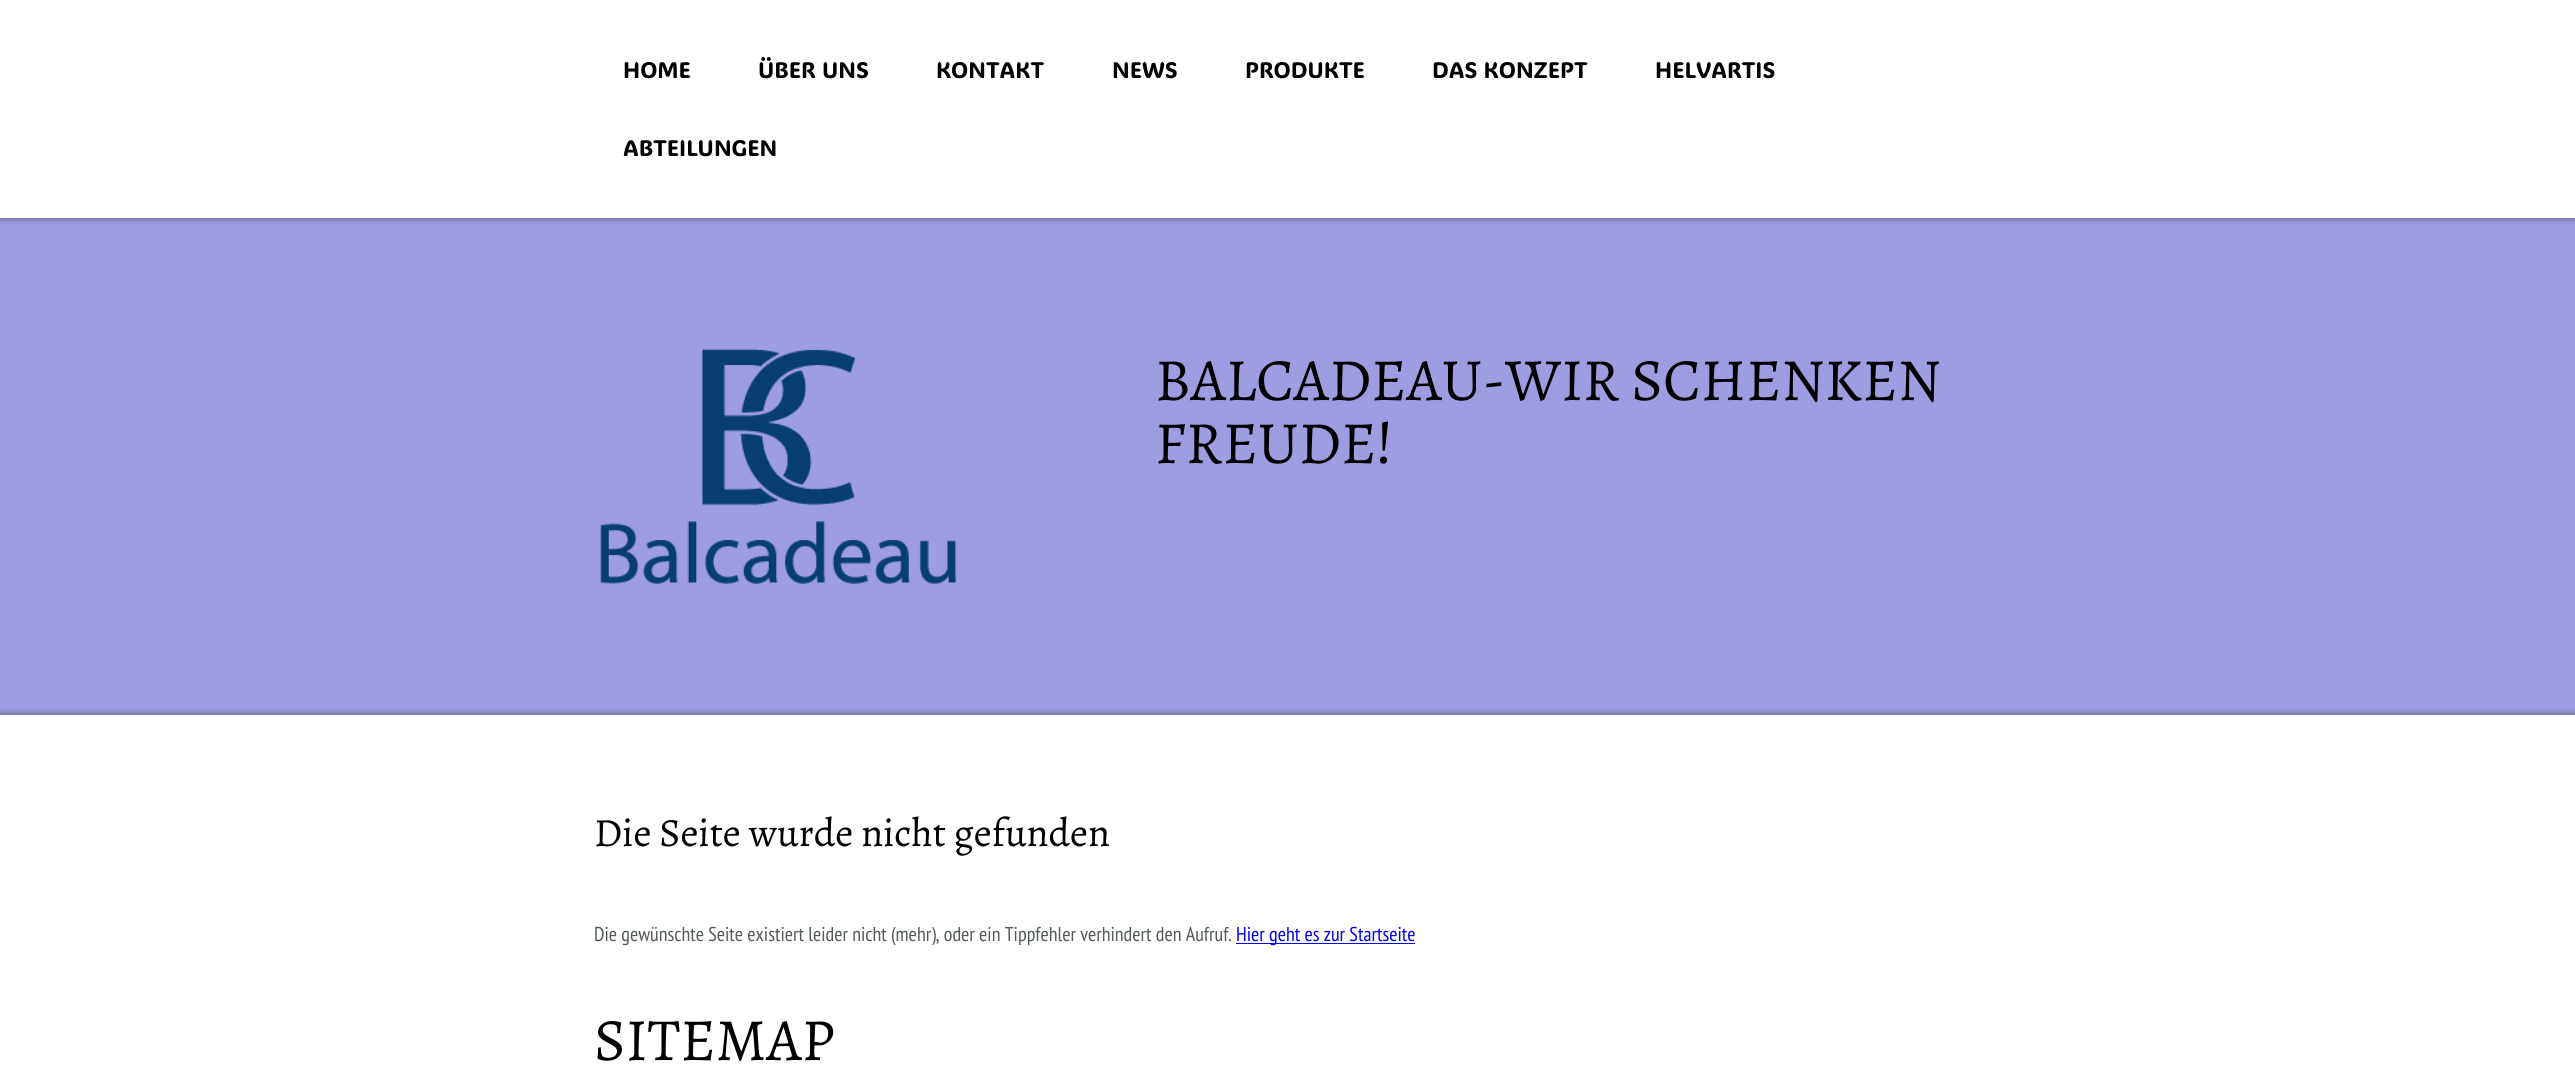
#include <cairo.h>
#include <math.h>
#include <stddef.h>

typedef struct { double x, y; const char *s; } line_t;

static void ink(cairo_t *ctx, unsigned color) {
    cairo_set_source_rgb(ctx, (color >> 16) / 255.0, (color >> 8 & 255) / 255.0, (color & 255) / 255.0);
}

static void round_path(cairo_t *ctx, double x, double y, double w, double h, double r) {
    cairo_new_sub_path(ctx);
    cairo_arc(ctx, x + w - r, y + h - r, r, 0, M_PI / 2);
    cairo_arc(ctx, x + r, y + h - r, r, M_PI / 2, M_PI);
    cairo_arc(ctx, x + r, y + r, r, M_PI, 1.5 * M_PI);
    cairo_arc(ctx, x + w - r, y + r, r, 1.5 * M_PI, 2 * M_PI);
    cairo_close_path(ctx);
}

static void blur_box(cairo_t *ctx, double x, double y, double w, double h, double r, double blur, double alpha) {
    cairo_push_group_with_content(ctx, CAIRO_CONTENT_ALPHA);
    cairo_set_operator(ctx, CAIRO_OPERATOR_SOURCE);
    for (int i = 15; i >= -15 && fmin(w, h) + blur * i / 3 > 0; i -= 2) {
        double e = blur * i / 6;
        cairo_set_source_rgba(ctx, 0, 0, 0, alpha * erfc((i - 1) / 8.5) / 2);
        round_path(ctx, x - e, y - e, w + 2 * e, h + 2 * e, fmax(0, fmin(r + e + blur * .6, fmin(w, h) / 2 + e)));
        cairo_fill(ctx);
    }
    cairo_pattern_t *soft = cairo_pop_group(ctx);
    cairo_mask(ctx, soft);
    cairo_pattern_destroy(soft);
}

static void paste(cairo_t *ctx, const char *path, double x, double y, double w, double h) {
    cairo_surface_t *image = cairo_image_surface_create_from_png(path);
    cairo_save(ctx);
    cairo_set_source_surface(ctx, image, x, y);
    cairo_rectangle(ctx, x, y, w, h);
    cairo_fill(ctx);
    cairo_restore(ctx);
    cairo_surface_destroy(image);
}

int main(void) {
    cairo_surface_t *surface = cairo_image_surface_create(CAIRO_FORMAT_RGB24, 2575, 1081);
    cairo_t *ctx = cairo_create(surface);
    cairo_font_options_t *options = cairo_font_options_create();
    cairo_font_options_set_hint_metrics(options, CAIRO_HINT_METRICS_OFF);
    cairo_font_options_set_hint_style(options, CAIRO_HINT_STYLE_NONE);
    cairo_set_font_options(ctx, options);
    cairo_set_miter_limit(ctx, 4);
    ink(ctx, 0x9F9DE2);
    cairo_paint(ctx);
    ink(ctx, 0x000000);
    blur_box(ctx, -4, -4, 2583, 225, 0, 2, 0.2);
    ink(ctx, 0xFFFFFF);
    cairo_rectangle(ctx, 0, 0, 2575, 218);
    cairo_fill(ctx);
    cairo_select_font_face(ctx, "ADLaM Display", CAIRO_FONT_SLANT_NORMAL, CAIRO_FONT_WEIGHT_NORMAL);
    cairo_set_font_size(ctx, 22.5);
    ink(ctx, 0x000000);
    {
        static const line_t items[] = {
            {623, 78, "HOME"},
            {758, 78, "ÜBER UNS"},
            {936, 78, "KONTAKT"},
            {1112, 78, "NEWS"},
            {1245, 78, "PRODUKTE"},
            {1432, 78, "DAS KONZEPT"},
            {1655, 78, "HELVARTIS"},
            {623, 156, "ABTEILUNGEN"},
        };
        for (size_t i = 0; i < sizeof items / sizeof *items; i++) {
            cairo_move_to(ctx, items[i].x, items[i].y);
            cairo_show_text(ctx, items[i].s);
        }
    }
    paste(ctx, "media/1.png", 600, 348, 357, 236);
    cairo_select_font_face(ctx, "Alegreya", CAIRO_FONT_SLANT_NORMAL, CAIRO_FONT_WEIGHT_NORMAL);
    cairo_set_font_size(ctx, 60);
    cairo_move_to(ctx, 1155, 400);
    cairo_show_text(ctx, "BALCADEAU-WIR SCHENKEN");
    cairo_move_to(ctx, 1155, 463);
    cairo_show_text(ctx, "FREUDE!");
    ink(ctx, 0x000000);
    blur_box(ctx, -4, 711, 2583, 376, 0, 2, 0.2);
    ink(ctx, 0xFFFFFF);
    cairo_rectangle(ctx, 0, 715, 2575, 366);
    cairo_fill(ctx);
    cairo_set_font_size(ctx, 40);
    ink(ctx, 0x000000);
    cairo_move_to(ctx, 594, 846);
    cairo_show_text(ctx, "Die Seite wurde nicht gefunden");
    cairo_select_font_face(ctx, "PT Sans Narrow", CAIRO_FONT_SLANT_NORMAL, CAIRO_FONT_WEIGHT_NORMAL);
    cairo_set_font_size(ctx, 20);
    ink(ctx, 0x525B56);
    cairo_move_to(ctx, 594, 941);
    cairo_show_text(ctx, "Die gewünschte Seite existiert leider nicht (mehr), oder ein Tippfehler verhindert den Aufruf.");
    ink(ctx, 0x0000EE);
    cairo_rectangle(ctx, 1236, 943, 179, 1);
    cairo_fill(ctx);
    cairo_move_to(ctx, 1236, 941);
    cairo_show_text(ctx, "Hier geht es zur Startseite");
    cairo_select_font_face(ctx, "Alegreya", CAIRO_FONT_SLANT_NORMAL, CAIRO_FONT_WEIGHT_NORMAL);
    cairo_set_font_size(ctx, 60);
    ink(ctx, 0x000000);
    cairo_move_to(ctx, 594, 1060);
    cairo_show_text(ctx, "SITEMAP");
    cairo_surface_write_to_png(surface, "image.png");
    cairo_font_options_destroy(options);
    cairo_destroy(ctx);
    cairo_surface_destroy(surface);
    return 0;
}
